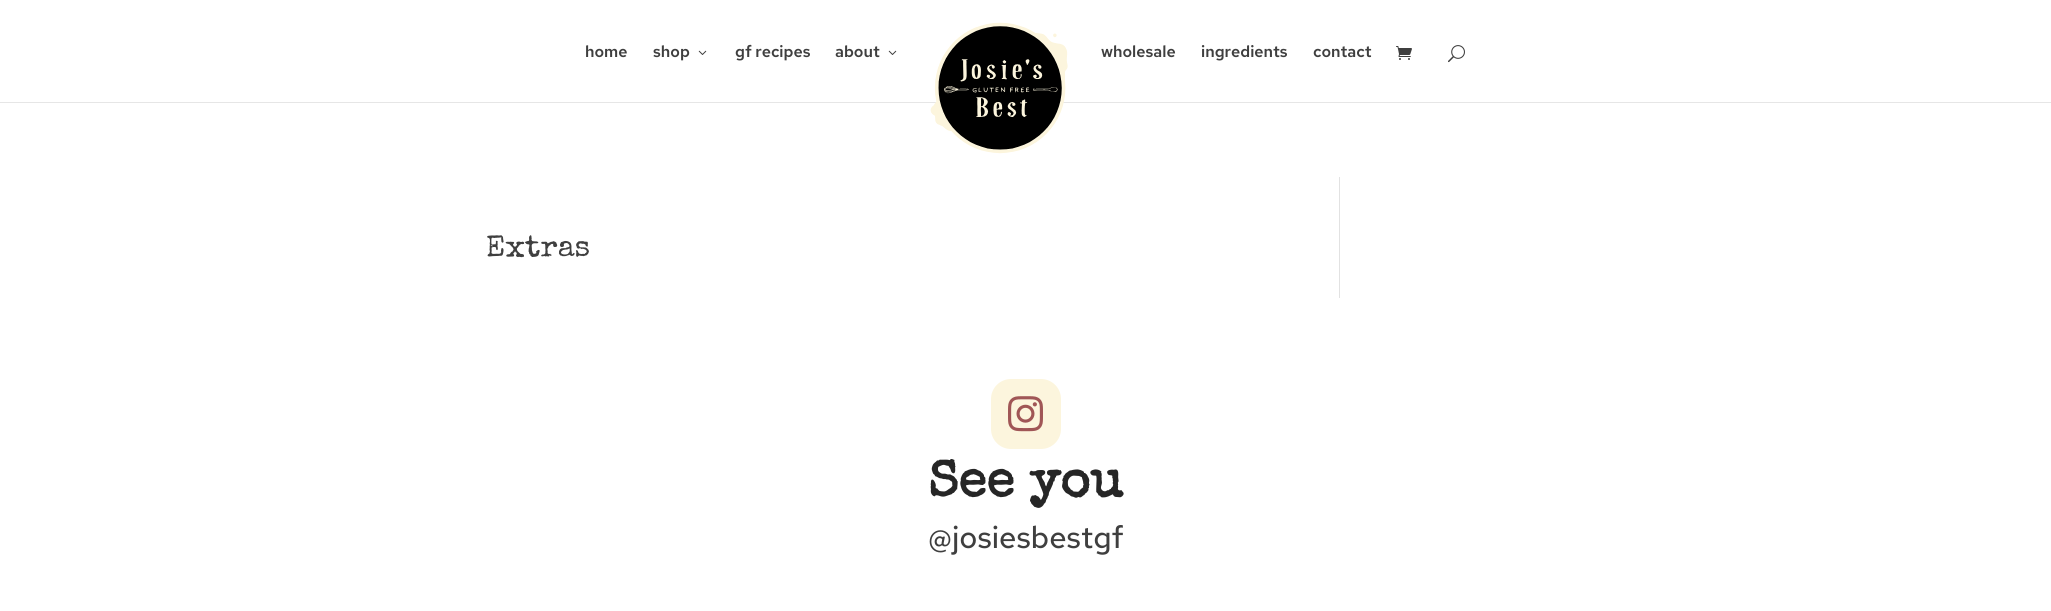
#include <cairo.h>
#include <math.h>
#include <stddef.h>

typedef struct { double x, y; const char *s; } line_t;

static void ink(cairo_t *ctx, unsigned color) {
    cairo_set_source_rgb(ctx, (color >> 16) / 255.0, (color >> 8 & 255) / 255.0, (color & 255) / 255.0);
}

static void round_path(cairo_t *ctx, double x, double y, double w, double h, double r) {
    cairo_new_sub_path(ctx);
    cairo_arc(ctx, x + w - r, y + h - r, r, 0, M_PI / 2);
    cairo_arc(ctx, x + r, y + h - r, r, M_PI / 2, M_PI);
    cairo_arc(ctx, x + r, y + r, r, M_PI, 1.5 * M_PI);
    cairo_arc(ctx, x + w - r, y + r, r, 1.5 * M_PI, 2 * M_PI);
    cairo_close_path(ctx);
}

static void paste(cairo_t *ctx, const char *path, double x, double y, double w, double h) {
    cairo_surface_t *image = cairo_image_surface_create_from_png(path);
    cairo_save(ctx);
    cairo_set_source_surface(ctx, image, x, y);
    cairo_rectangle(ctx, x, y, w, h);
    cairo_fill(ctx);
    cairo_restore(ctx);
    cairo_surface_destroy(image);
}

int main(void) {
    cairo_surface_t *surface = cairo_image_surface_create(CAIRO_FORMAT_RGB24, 2051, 611);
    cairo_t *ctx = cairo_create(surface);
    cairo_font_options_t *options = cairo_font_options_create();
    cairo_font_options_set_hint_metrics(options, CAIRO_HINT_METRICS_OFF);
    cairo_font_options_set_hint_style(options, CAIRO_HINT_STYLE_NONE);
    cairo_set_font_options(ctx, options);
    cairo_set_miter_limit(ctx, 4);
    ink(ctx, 0xFFFFFF);
    cairo_paint(ctx);
    ink(ctx, 0xE6E6E6);
    cairo_rectangle(ctx, 0, 102, 2051, 1);
    cairo_fill(ctx);
    cairo_select_font_face(ctx, "Red Hat Text SemiBold", CAIRO_FONT_SLANT_NORMAL, CAIRO_FONT_WEIGHT_NORMAL);
    cairo_set_font_size(ctx, 16);
    ink(ctx, 0x3F3F3F);
    cairo_move_to(ctx, 585, 57);
    cairo_show_text(ctx, "home");
    cairo_move_to(ctx, 653, 57);
    cairo_show_text(ctx, "shop");
    paste(ctx, "media/1.png", 698, 50, 9, 5);
    cairo_move_to(ctx, 735, 57);
    cairo_show_text(ctx, "gf recipes");
    cairo_move_to(ctx, 835, 57);
    cairo_show_text(ctx, "about");
    paste(ctx, "media/1.png", 888, 50, 9, 5);
    paste(ctx, "media/2.png", 930, 22, 138, 132);
    {
        static const line_t items[] = {
            {1101, 57, "wholesale"},
            {1201, 57, "ingredients"},
            {1313, 57, "contact"},
        };
        for (size_t i = 0; i < sizeof items / sizeof *items; i++) {
            cairo_move_to(ctx, items[i].x, items[i].y);
            cairo_show_text(ctx, items[i].s);
        }
    }
    paste(ctx, "media/3.png", 1396, 46, 16, 14);
    paste(ctx, "media/4.png", 1448, 45, 17, 18);
    cairo_select_font_face(ctx, "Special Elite", CAIRO_FONT_SLANT_NORMAL, CAIRO_FONT_WEIGHT_NORMAL);
    cairo_set_font_size(ctx, 30);
    cairo_move_to(ctx, 486, 256);
    cairo_show_text(ctx, "Extras");
    ink(ctx, 0xE2E2E2);
    cairo_rectangle(ctx, 1339, 177, 1, 121);
    cairo_fill(ctx);
    ink(ctx, 0xFCF5DD);
    round_path(ctx, 991, 379, 70, 70, 20);
    cairo_fill(ctx);
    paste(ctx, "media/5.png", 1008, 396, 35, 36);
    cairo_select_font_face(ctx, "Special Elite", CAIRO_FONT_SLANT_NORMAL, CAIRO_FONT_WEIGHT_BOLD);
    cairo_set_font_size(ctx, 51.5);
    ink(ctx, 0x262626);
    cairo_move_to(ctx, 928, 496);
    cairo_show_text(ctx, "See you");
    cairo_select_font_face(ctx, "Red Hat Text Medium", CAIRO_FONT_SLANT_NORMAL, CAIRO_FONT_WEIGHT_NORMAL);
    cairo_set_font_size(ctx, 30.75);
    ink(ctx, 0x3F3F3F);
    cairo_move_to(ctx, 928, 548);
    cairo_show_text(ctx, "@josiesbestgf");
    cairo_surface_write_to_png(surface, "image.png");
    cairo_font_options_destroy(options);
    cairo_destroy(ctx);
    cairo_surface_destroy(surface);
    return 0;
}
